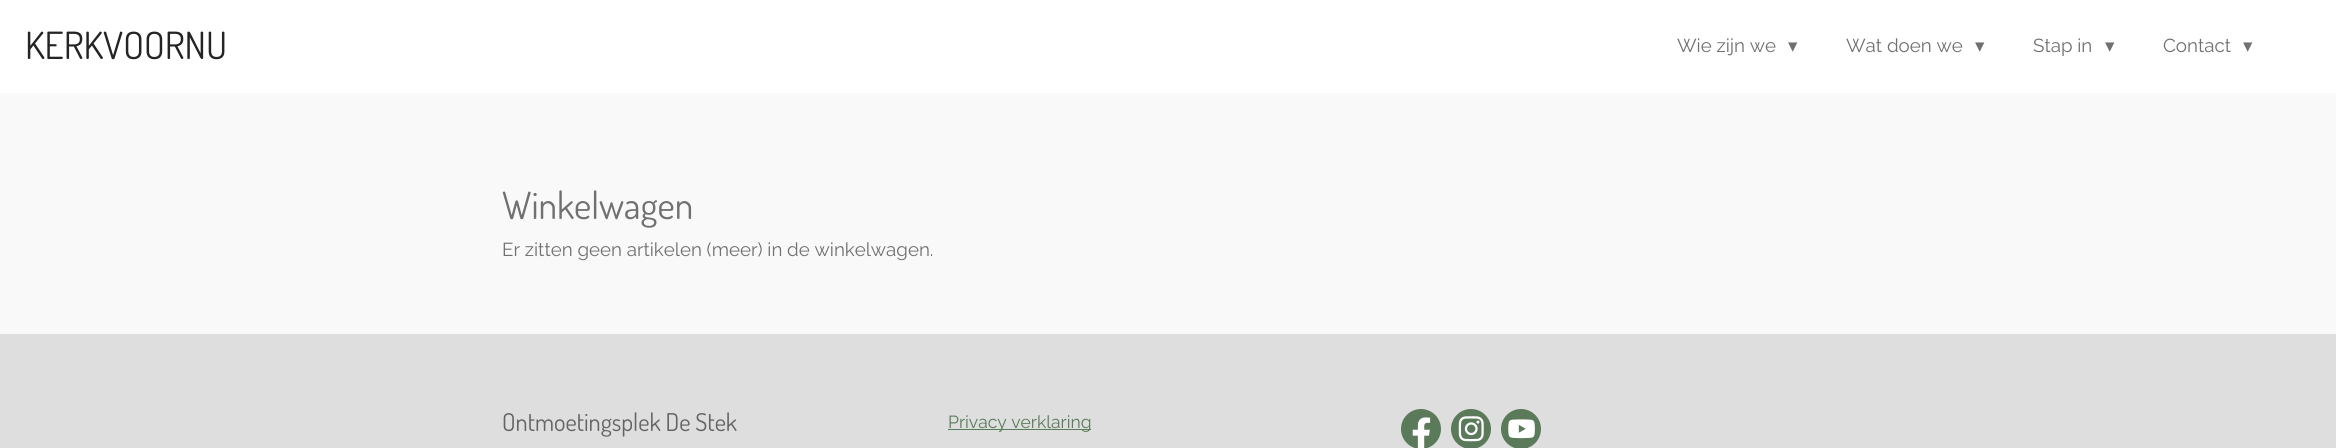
#include <cairo.h>
#include <math.h>
#include <stddef.h>


static void ink(cairo_t *ctx, unsigned color) {
    cairo_set_source_rgb(ctx, (color >> 16) / 255.0, (color >> 8 & 255) / 255.0, (color & 255) / 255.0);
}

static void paste(cairo_t *ctx, const char *path, double x, double y, double w, double h) {
    cairo_surface_t *image = cairo_image_surface_create_from_png(path);
    cairo_save(ctx);
    cairo_set_source_surface(ctx, image, x, y);
    cairo_rectangle(ctx, x, y, w, h);
    cairo_fill(ctx);
    cairo_restore(ctx);
    cairo_surface_destroy(image);
}

int main(void) {
    cairo_surface_t *surface = cairo_image_surface_create(CAIRO_FORMAT_RGB24, 2336, 448);
    cairo_t *ctx = cairo_create(surface);
    cairo_font_options_t *options = cairo_font_options_create();
    cairo_font_options_set_hint_metrics(options, CAIRO_HINT_METRICS_OFF);
    cairo_font_options_set_hint_style(options, CAIRO_HINT_STYLE_NONE);
    cairo_set_font_options(ctx, options);
    cairo_set_miter_limit(ctx, 4);
    ink(ctx, 0xFFFFFF);
    cairo_paint(ctx);
    cairo_select_font_face(ctx, "Dosis", CAIRO_FONT_SLANT_NORMAL, CAIRO_FONT_WEIGHT_NORMAL);
    cairo_set_font_size(ctx, 37.5);
    ink(ctx, 0x242424);
    cairo_move_to(ctx, 25, 59);
    cairo_show_text(ctx, "KERKVOORNU");
    cairo_select_font_face(ctx, "Raleway", CAIRO_FONT_SLANT_NORMAL, CAIRO_FONT_WEIGHT_NORMAL);
    cairo_set_font_size(ctx, 18.75);
    ink(ctx, 0x707070);
    cairo_move_to(ctx, 1677, 52);
    cairo_show_text(ctx, "Wie zijn we");
    cairo_select_font_face(ctx, "DejaVu Sans", CAIRO_FONT_SLANT_NORMAL, CAIRO_FONT_WEIGHT_NORMAL);
    cairo_move_to(ctx, 1788, 52);
    cairo_show_text(ctx, "▾");
    cairo_select_font_face(ctx, "Raleway", CAIRO_FONT_SLANT_NORMAL, CAIRO_FONT_WEIGHT_NORMAL);
    cairo_move_to(ctx, 1846, 52);
    cairo_show_text(ctx, "Wat doen we");
    cairo_select_font_face(ctx, "DejaVu Sans", CAIRO_FONT_SLANT_NORMAL, CAIRO_FONT_WEIGHT_NORMAL);
    cairo_move_to(ctx, 1975, 52);
    cairo_show_text(ctx, "▾");
    cairo_select_font_face(ctx, "Raleway", CAIRO_FONT_SLANT_NORMAL, CAIRO_FONT_WEIGHT_NORMAL);
    cairo_move_to(ctx, 2033, 52);
    cairo_show_text(ctx, "Stap in");
    cairo_select_font_face(ctx, "DejaVu Sans", CAIRO_FONT_SLANT_NORMAL, CAIRO_FONT_WEIGHT_NORMAL);
    cairo_move_to(ctx, 2105, 52);
    cairo_show_text(ctx, "▾");
    cairo_select_font_face(ctx, "Raleway", CAIRO_FONT_SLANT_NORMAL, CAIRO_FONT_WEIGHT_NORMAL);
    cairo_move_to(ctx, 2163, 52);
    cairo_show_text(ctx, "Contact");
    cairo_select_font_face(ctx, "DejaVu Sans", CAIRO_FONT_SLANT_NORMAL, CAIRO_FONT_WEIGHT_NORMAL);
    cairo_move_to(ctx, 2243, 52);
    cairo_show_text(ctx, "▾");
    ink(ctx, 0xF9F9F9);
    cairo_rectangle(ctx, 0, 93, 2336, 241);
    cairo_fill(ctx);
    cairo_select_font_face(ctx, "Dosis", CAIRO_FONT_SLANT_NORMAL, CAIRO_FONT_WEIGHT_NORMAL);
    cairo_set_font_size(ctx, 37.5);
    ink(ctx, 0x707070);
    cairo_move_to(ctx, 502, 219);
    cairo_show_text(ctx, "Winkelwagen");
    cairo_select_font_face(ctx, "Raleway", CAIRO_FONT_SLANT_NORMAL, CAIRO_FONT_WEIGHT_NORMAL);
    cairo_set_font_size(ctx, 18.75);
    cairo_move_to(ctx, 502, 256);
    cairo_show_text(ctx, "Er zitten geen artikelen (meer) in de winkelwagen.");
    ink(ctx, 0xDEDEDE);
    cairo_rectangle(ctx, 0, 334, 2336, 114);
    cairo_fill(ctx);
    cairo_select_font_face(ctx, "Dosis", CAIRO_FONT_SLANT_NORMAL, CAIRO_FONT_WEIGHT_NORMAL);
    cairo_set_font_size(ctx, 24.5);
    ink(ctx, 0x646464);
    cairo_move_to(ctx, 502, 431);
    cairo_show_text(ctx, "Ontmoetingsplek De Stek");
    ink(ctx, 0x5A7A5A);
    cairo_rectangle(ctx, 948, 429, 143, 1);
    cairo_fill(ctx);
    cairo_select_font_face(ctx, "Raleway", CAIRO_FONT_SLANT_NORMAL, CAIRO_FONT_WEIGHT_NORMAL);
    cairo_set_font_size(ctx, 17.5);
    cairo_move_to(ctx, 948, 428);
    cairo_show_text(ctx, "Privacy verklaring");
    cairo_new_path(ctx);
    cairo_arc(ctx, 1421, 429, 20, 0, 2 * M_PI);
    cairo_fill(ctx);
    paste(ctx, "media/1.png", 1412, 417, 19, 31);
    cairo_arc(ctx, 1471, 429, 20, 0, 2 * M_PI);
    cairo_fill(ctx);
    paste(ctx, "media/2.png", 1458, 416, 26, 26);
    cairo_arc(ctx, 1521, 429, 20, 0, 2 * M_PI);
    cairo_fill(ctx);
    paste(ctx, "media/3.png", 1508, 419, 27, 20);
    cairo_surface_write_to_png(surface, "image.png");
    cairo_font_options_destroy(options);
    cairo_destroy(ctx);
    cairo_surface_destroy(surface);
    return 0;
}
